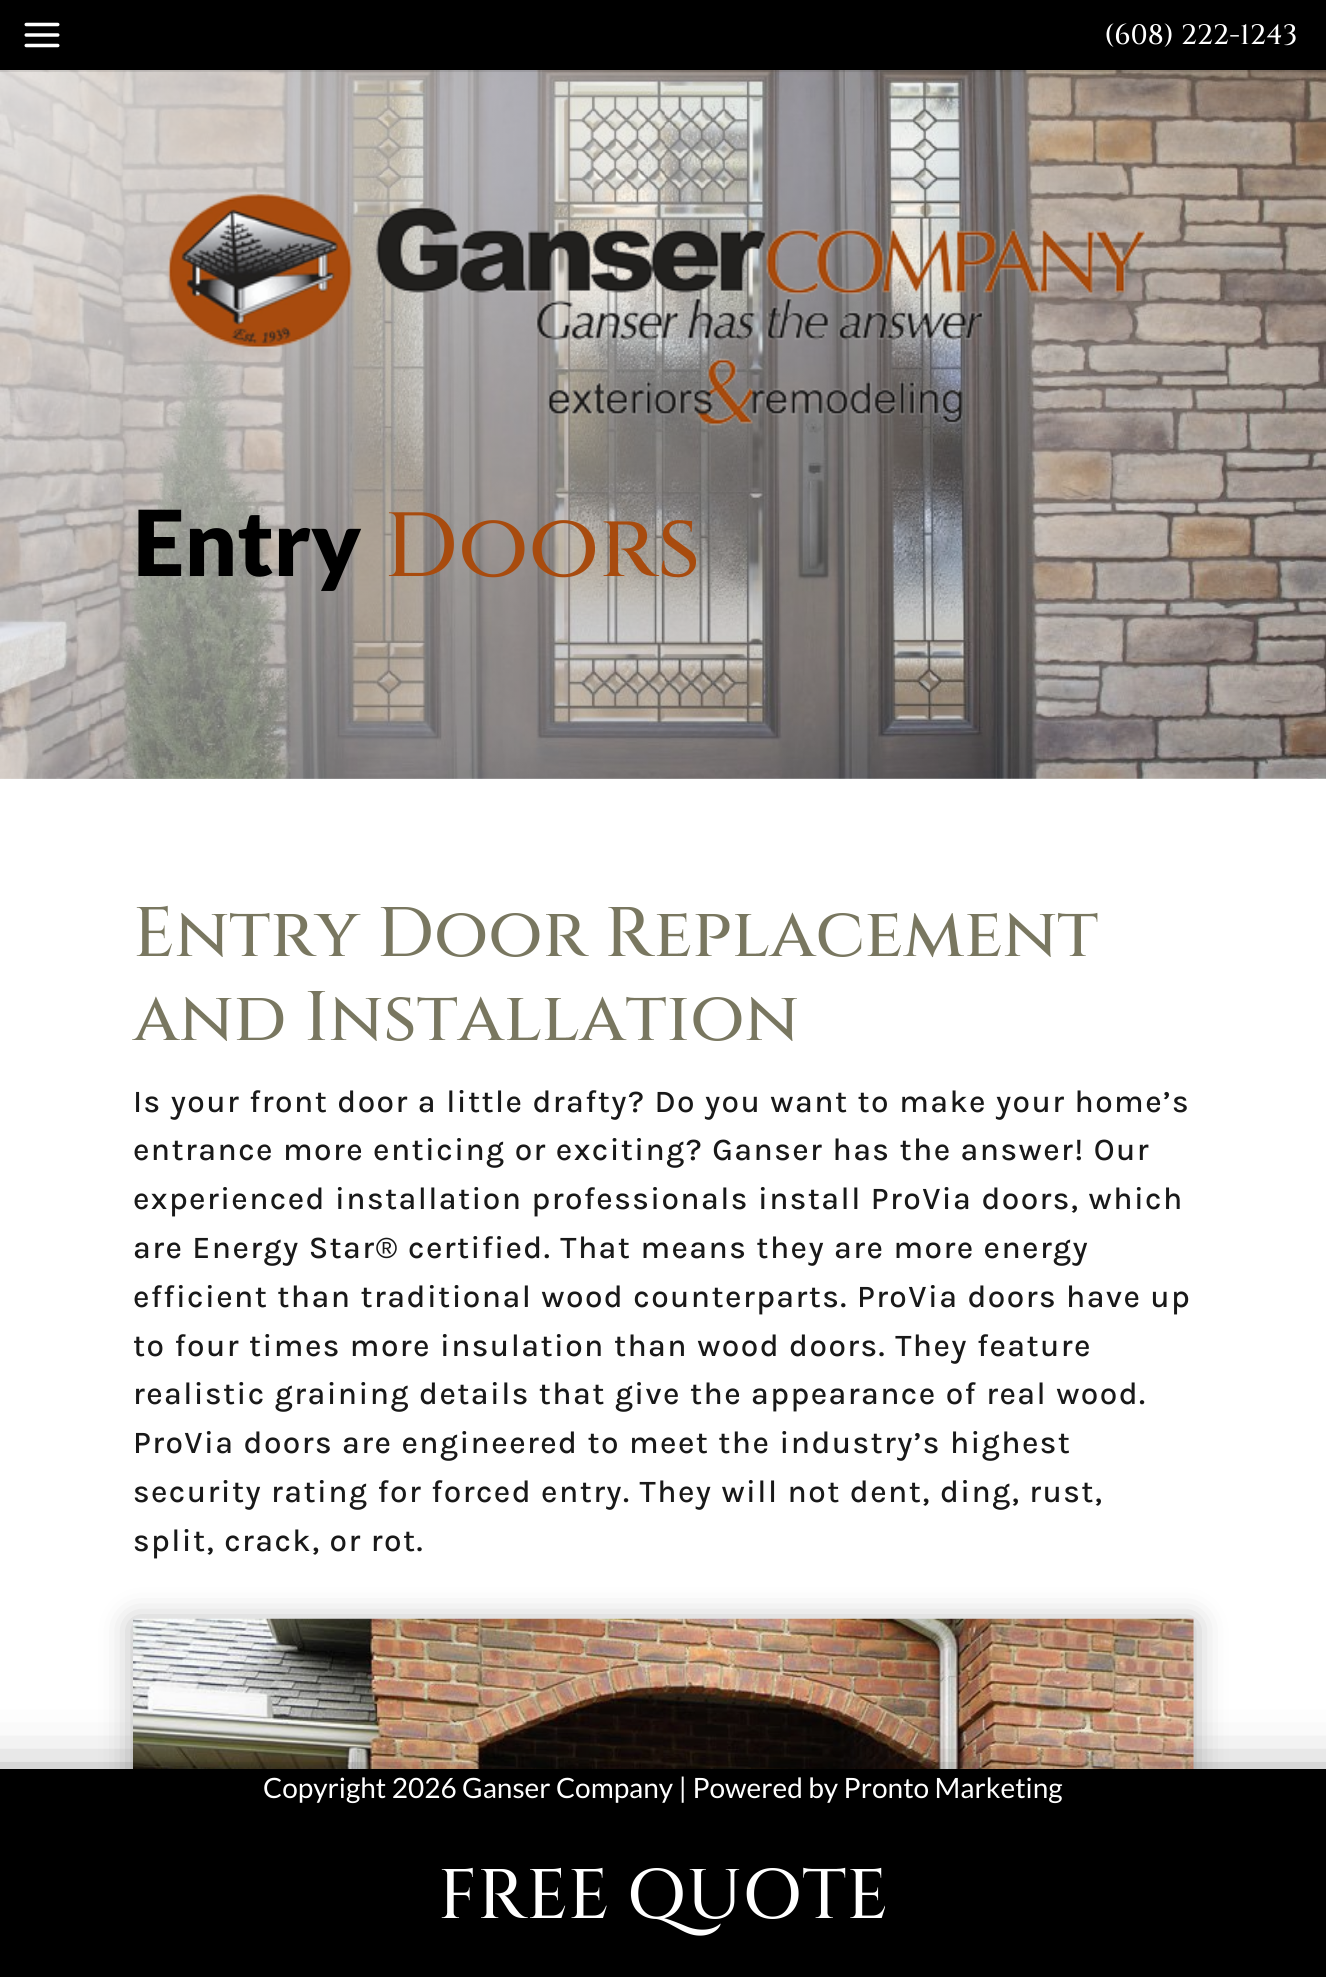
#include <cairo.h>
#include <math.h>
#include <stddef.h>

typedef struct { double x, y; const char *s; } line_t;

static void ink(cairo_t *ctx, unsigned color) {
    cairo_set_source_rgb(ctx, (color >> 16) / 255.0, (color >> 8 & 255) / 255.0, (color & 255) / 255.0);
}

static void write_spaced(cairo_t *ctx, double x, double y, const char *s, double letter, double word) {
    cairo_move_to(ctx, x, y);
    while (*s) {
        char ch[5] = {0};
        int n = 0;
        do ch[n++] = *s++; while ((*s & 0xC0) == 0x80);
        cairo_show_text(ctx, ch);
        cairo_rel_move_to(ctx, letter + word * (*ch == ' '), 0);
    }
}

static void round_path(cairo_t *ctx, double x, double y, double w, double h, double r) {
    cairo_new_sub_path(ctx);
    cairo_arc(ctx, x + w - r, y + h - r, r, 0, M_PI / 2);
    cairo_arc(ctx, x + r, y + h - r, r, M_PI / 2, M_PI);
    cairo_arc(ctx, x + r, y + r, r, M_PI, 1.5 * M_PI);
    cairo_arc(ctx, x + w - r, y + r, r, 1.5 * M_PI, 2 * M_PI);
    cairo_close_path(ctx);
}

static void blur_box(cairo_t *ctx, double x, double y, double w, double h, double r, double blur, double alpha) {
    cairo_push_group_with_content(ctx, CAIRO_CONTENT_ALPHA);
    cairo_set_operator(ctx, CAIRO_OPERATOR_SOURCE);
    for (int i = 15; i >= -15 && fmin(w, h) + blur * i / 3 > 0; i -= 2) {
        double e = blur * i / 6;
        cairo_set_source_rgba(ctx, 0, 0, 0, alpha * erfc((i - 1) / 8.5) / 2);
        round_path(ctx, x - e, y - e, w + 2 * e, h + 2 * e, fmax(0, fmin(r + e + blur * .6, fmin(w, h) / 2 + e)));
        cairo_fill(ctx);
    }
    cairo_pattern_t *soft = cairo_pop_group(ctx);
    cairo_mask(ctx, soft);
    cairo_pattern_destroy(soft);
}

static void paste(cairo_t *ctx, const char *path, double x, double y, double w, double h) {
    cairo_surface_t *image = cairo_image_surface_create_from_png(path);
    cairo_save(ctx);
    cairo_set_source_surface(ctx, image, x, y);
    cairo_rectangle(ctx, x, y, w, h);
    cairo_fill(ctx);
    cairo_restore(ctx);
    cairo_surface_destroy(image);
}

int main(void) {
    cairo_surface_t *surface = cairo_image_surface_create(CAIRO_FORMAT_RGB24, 1326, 1977);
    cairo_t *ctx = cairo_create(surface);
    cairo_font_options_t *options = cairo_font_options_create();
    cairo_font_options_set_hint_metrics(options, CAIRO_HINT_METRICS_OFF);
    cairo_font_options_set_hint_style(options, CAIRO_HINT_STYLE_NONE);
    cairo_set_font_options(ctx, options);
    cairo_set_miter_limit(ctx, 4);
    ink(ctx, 0xFFFFFF);
    cairo_paint(ctx);
    paste(ctx, "media/2.png", 0, 70, 1326, 709);
    cairo_set_source_rgba(ctx, 0, 0, 0, 0.1);
    cairo_new_path(ctx);
    cairo_move_to(ctx, 0, 70);
    cairo_line_to(ctx, 0, 72);
    cairo_line_to(ctx, 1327, 72);
    cairo_line_to(ctx, 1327, 2);
    cairo_line_to(ctx, 1326, 2);
    cairo_line_to(ctx, 1326, 70);
    cairo_close_path(ctx);
    cairo_fill(ctx);
    ink(ctx, 0x000000);
    cairo_rectangle(ctx, 0, 0, 1326, 70);
    cairo_fill(ctx);
    paste(ctx, "media/1.png", 24, 22, 36, 26);
    cairo_select_font_face(ctx, "Cinzel Medium", CAIRO_FONT_SLANT_NORMAL, CAIRO_FONT_WEIGHT_NORMAL);
    cairo_set_font_size(ctx, 28);
    ink(ctx, 0xFFFFFF);
    cairo_move_to(ctx, 1104, 44);
    cairo_show_text(ctx, "(608) 222-1243");
    paste(ctx, "media/3.png", 167, 193, 979, 233);
    cairo_select_font_face(ctx, "Lato Black", CAIRO_FONT_SLANT_NORMAL, CAIRO_FONT_WEIGHT_NORMAL);
    cairo_set_font_size(ctx, 91);
    ink(ctx, 0x000000);
    cairo_move_to(ctx, 133, 576);
    cairo_show_text(ctx, "Entry");
    cairo_select_font_face(ctx, "Cinzel Medium", CAIRO_FONT_SLANT_NORMAL, CAIRO_FONT_WEIGHT_NORMAL);
    ink(ctx, 0xA84B0E);
    cairo_move_to(ctx, 384, 576);
    cairo_show_text(ctx, "Doors");
    cairo_set_font_size(ctx, 70);
    ink(ctx, 0x797760);
    cairo_move_to(ctx, 133, 956);
    cairo_show_text(ctx, "Entry Door Replacement");
    cairo_move_to(ctx, 133, 1040);
    cairo_show_text(ctx, "and Installation");
    cairo_select_font_face(ctx, "Karla Medium", CAIRO_FONT_SLANT_NORMAL, CAIRO_FONT_WEIGHT_NORMAL);
    cairo_set_font_size(ctx, 31.5);
    ink(ctx, 0x191919);
    {
        static const line_t items[] = {
            {133, 1112, "Is your front door a little drafty? Do you want to make your home’s"},
            {133, 1160, "entrance more enticing or exciting? Ganser has the answer! Our"},
            {133, 1209, "experienced installation professionals install ProVia doors, which"},
            {133, 1258, "are Energy Star® certified. That means they are more energy"},
            {133, 1307, "efficient than traditional wood counterparts. ProVia doors have up"},
            {133, 1356, "to four times more insulation than wood doors. They feature"},
            {133, 1404, "realistic graining details that give the appearance of real wood."},
            {133, 1453, "ProVia doors are engineered to meet the industry’s highest"},
            {133, 1502, "security rating for forced entry. They will not dent, ding, rust,"},
            {133, 1551, "split, crack, or rot."},
        };
        for (size_t i = 0; i < sizeof items / sizeof *items; i++) {
            write_spaced(ctx, items[i].x, items[i].y, items[i].s, 1.42, 0);
        }
    }
    ink(ctx, 0x000000);
    blur_box(ctx, 133, 1622, 1061, 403, 0, 16, 0.3);
    paste(ctx, "media/4.png", 133, 1618, 1061, 151);
    blur_box(ctx, -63, 1808, 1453, 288, 0, 39.5, 1);
    ink(ctx, 0x000000);
    cairo_rectangle(ctx, 0, 1769, 1326, 208);
    cairo_fill(ctx);
    cairo_select_font_face(ctx, "Lato", CAIRO_FONT_SLANT_NORMAL, CAIRO_FONT_WEIGHT_NORMAL);
    cairo_set_font_size(ctx, 28);
    ink(ctx, 0xFFFFFF);
    cairo_move_to(ctx, 263, 1798);
    cairo_show_text(ctx, "Copyright 2026 Ganser Company | Powered by Pronto Marketing");
    cairo_select_font_face(ctx, "Cinzel Medium", CAIRO_FONT_SLANT_NORMAL, CAIRO_FONT_WEIGHT_NORMAL);
    cairo_set_font_size(ctx, 70);
    cairo_move_to(ctx, 438, 1918);
    cairo_show_text(ctx, "FREE QUOTE");
    cairo_surface_write_to_png(surface, "image.png");
    cairo_font_options_destroy(options);
    cairo_destroy(ctx);
    cairo_surface_destroy(surface);
    return 0;
}
